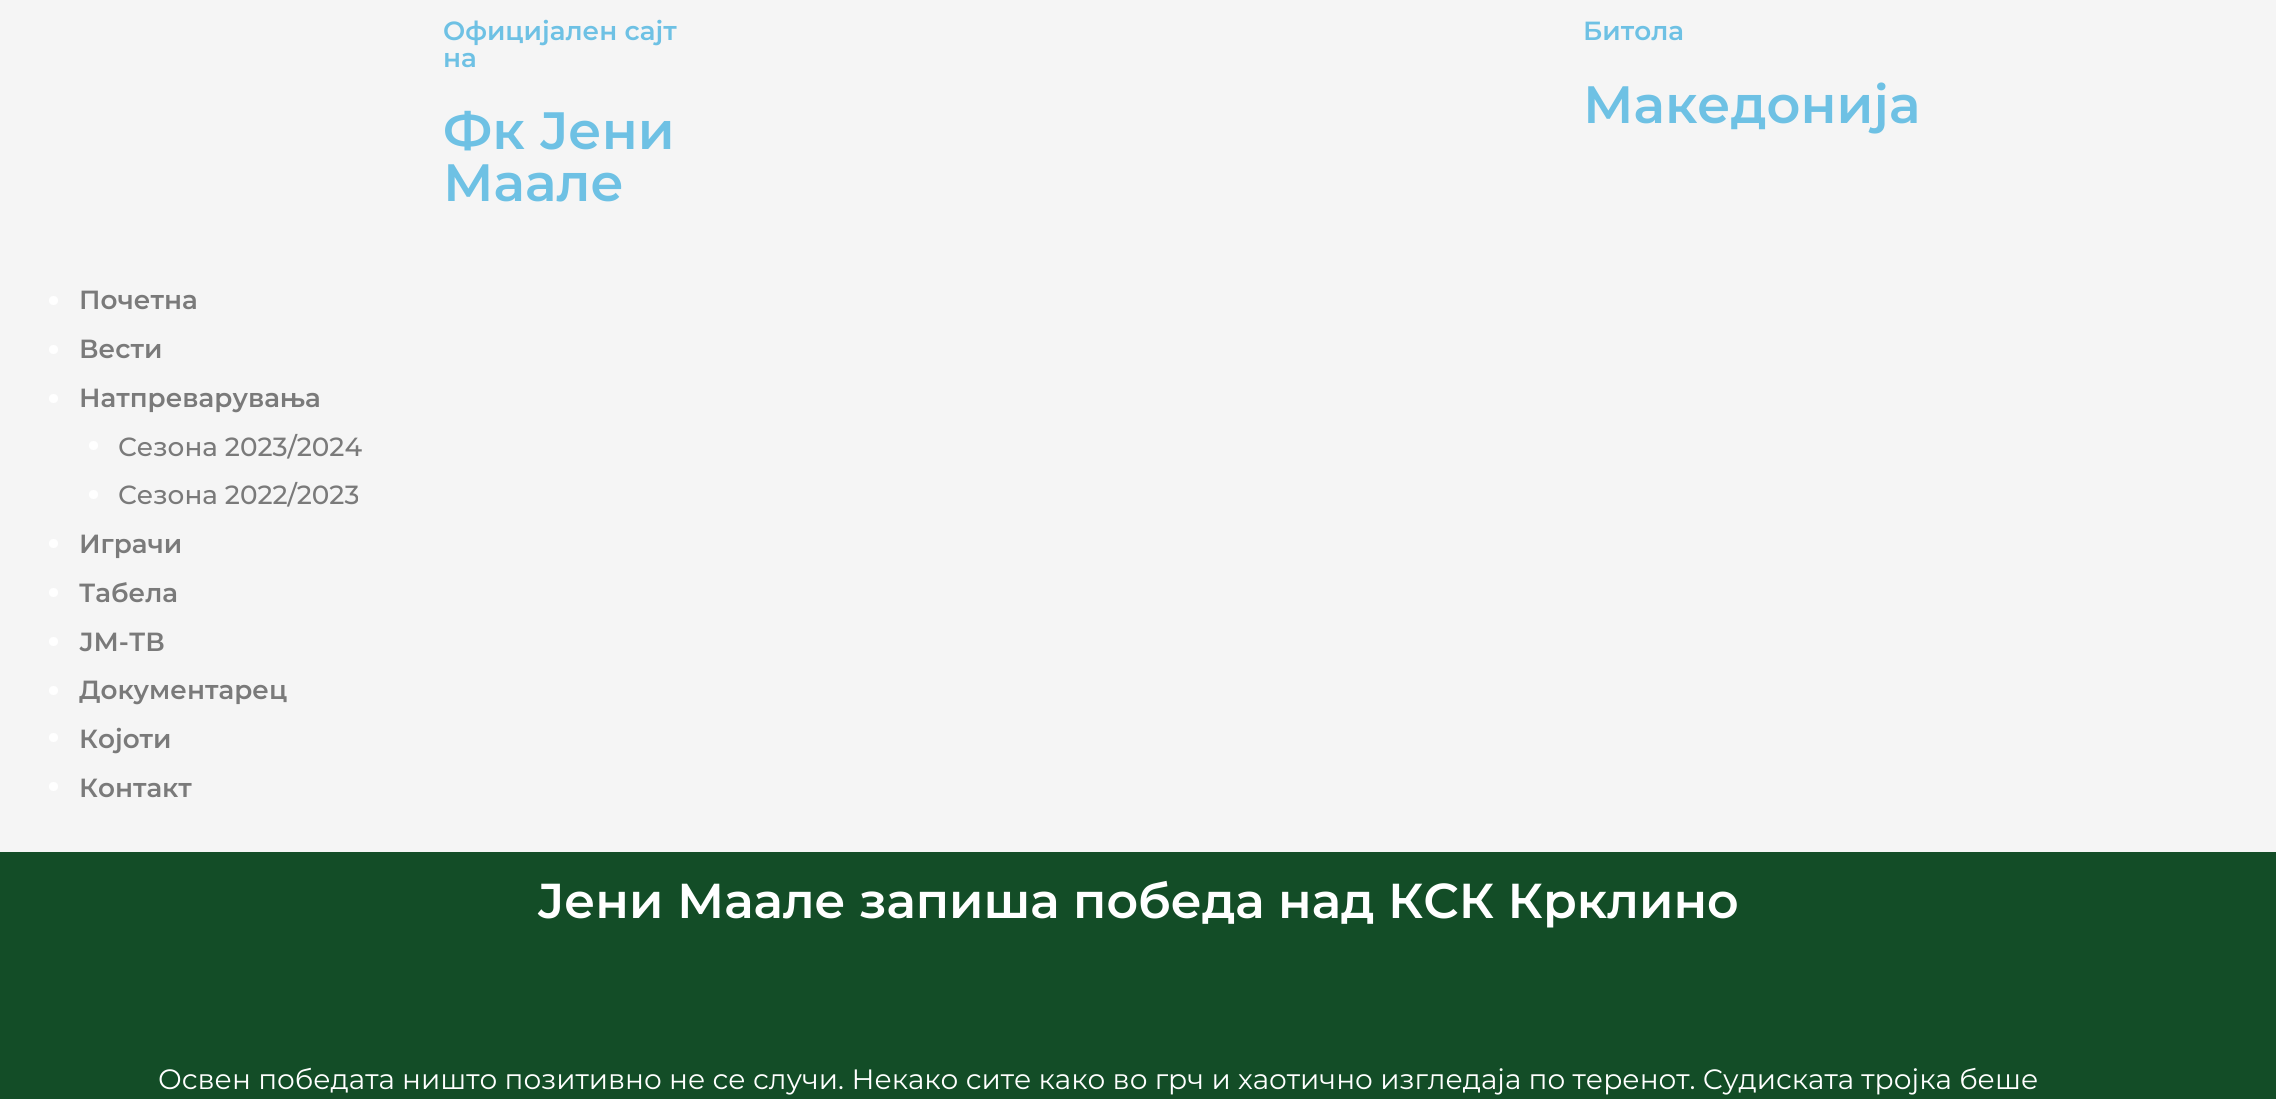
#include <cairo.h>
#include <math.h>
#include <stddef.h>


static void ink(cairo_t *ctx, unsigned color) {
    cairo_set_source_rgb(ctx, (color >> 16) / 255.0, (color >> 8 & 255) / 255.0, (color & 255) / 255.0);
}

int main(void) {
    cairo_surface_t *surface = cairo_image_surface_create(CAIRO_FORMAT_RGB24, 2276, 1099);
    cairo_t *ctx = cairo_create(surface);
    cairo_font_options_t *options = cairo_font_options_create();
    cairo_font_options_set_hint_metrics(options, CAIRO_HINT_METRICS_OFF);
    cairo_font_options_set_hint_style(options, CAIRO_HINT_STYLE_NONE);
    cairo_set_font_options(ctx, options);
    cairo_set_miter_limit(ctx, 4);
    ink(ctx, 0xF5F5F5);
    cairo_paint(ctx);
    cairo_select_font_face(ctx, "Montserrat SemiBold", CAIRO_FONT_SLANT_NORMAL, CAIRO_FONT_WEIGHT_NORMAL);
    cairo_set_font_size(ctx, 26.25);
    ink(ctx, 0x6EC1E4);
    cairo_move_to(ctx, 443, 40);
    cairo_show_text(ctx, "Официјален сајт");
    cairo_move_to(ctx, 443, 67);
    cairo_show_text(ctx, "на");
    cairo_set_font_size(ctx, 52.5);
    cairo_move_to(ctx, 443, 149);
    cairo_show_text(ctx, "Фк Јени");
    cairo_move_to(ctx, 443, 201);
    cairo_show_text(ctx, "Маале");
    cairo_set_font_size(ctx, 26.25);
    cairo_move_to(ctx, 1583, 40);
    cairo_show_text(ctx, "Битола");
    cairo_set_font_size(ctx, 52.5);
    cairo_move_to(ctx, 1583, 123);
    cairo_show_text(ctx, "Македонија");
    ink(ctx, 0xFFFFFF);
    cairo_new_path(ctx);
    cairo_arc(ctx, 53.5, 300.5, 4.5, 0, 2 * M_PI);
    cairo_fill(ctx);
    cairo_set_font_size(ctx, 26.25);
    ink(ctx, 0x7A7A7A);
    cairo_move_to(ctx, 79, 309);
    cairo_show_text(ctx, "Почетна");
    ink(ctx, 0xFFFFFF);
    cairo_new_path(ctx);
    cairo_arc(ctx, 53.5, 349.5, 4.5, 0, 2 * M_PI);
    cairo_fill(ctx);
    ink(ctx, 0x7A7A7A);
    cairo_move_to(ctx, 79, 358);
    cairo_show_text(ctx, "Вести");
    ink(ctx, 0xFFFFFF);
    cairo_new_path(ctx);
    cairo_arc(ctx, 53.5, 398.5, 4.5, 0, 2 * M_PI);
    cairo_fill(ctx);
    ink(ctx, 0x7A7A7A);
    cairo_move_to(ctx, 79, 407);
    cairo_show_text(ctx, "Натпреварувања");
    ink(ctx, 0xFFFFFF);
    cairo_new_path(ctx);
    cairo_arc(ctx, 93.5, 445.5, 4.5, 0, 2 * M_PI);
    cairo_fill(ctx);
    cairo_select_font_face(ctx, "Montserrat Medium", CAIRO_FONT_SLANT_NORMAL, CAIRO_FONT_WEIGHT_NORMAL);
    ink(ctx, 0x7A7A7A);
    cairo_move_to(ctx, 118, 456);
    cairo_show_text(ctx, "Сезона 2023/2024");
    ink(ctx, 0xFFFFFF);
    cairo_new_path(ctx);
    cairo_arc(ctx, 93.5, 494.5, 4.5, 0, 2 * M_PI);
    cairo_fill(ctx);
    ink(ctx, 0x7A7A7A);
    cairo_move_to(ctx, 118, 504);
    cairo_show_text(ctx, "Сезона 2022/2023");
    ink(ctx, 0xFFFFFF);
    cairo_new_path(ctx);
    cairo_arc(ctx, 53.5, 543.5, 4.5, 0, 2 * M_PI);
    cairo_fill(ctx);
    cairo_select_font_face(ctx, "Montserrat SemiBold", CAIRO_FONT_SLANT_NORMAL, CAIRO_FONT_WEIGHT_NORMAL);
    ink(ctx, 0x7A7A7A);
    cairo_move_to(ctx, 79, 553);
    cairo_show_text(ctx, "Играчи");
    ink(ctx, 0xFFFFFF);
    cairo_new_path(ctx);
    cairo_arc(ctx, 53.5, 592.5, 4.5, 0, 2 * M_PI);
    cairo_fill(ctx);
    ink(ctx, 0x7A7A7A);
    cairo_move_to(ctx, 79, 602);
    cairo_show_text(ctx, "Табела");
    ink(ctx, 0xFFFFFF);
    cairo_new_path(ctx);
    cairo_arc(ctx, 53.5, 641.5, 4.5, 0, 2 * M_PI);
    cairo_fill(ctx);
    ink(ctx, 0x7A7A7A);
    cairo_move_to(ctx, 79, 651);
    cairo_show_text(ctx, "ЈМ-ТВ");
    ink(ctx, 0xFFFFFF);
    cairo_new_path(ctx);
    cairo_arc(ctx, 53.5, 690.5, 4.5, 0, 2 * M_PI);
    cairo_fill(ctx);
    ink(ctx, 0x7A7A7A);
    cairo_move_to(ctx, 79, 699);
    cairo_show_text(ctx, "Документарец");
    ink(ctx, 0xFFFFFF);
    cairo_new_path(ctx);
    cairo_arc(ctx, 53.5, 737.5, 4.5, 0, 2 * M_PI);
    cairo_fill(ctx);
    ink(ctx, 0x7A7A7A);
    cairo_move_to(ctx, 79, 748);
    cairo_show_text(ctx, "Којоти");
    ink(ctx, 0xFFFFFF);
    cairo_new_path(ctx);
    cairo_arc(ctx, 53.5, 786.5, 4.5, 0, 2 * M_PI);
    cairo_fill(ctx);
    ink(ctx, 0x7A7A7A);
    cairo_move_to(ctx, 79, 797);
    cairo_show_text(ctx, "Контакт");
    ink(ctx, 0x134D27);
    cairo_rectangle(ctx, 0, 852, 2276, 247);
    cairo_fill(ctx);
    cairo_set_font_size(ctx, 49);
    ink(ctx, 0xFFFFFF);
    cairo_move_to(ctx, 537, 918);
    cairo_show_text(ctx, "Јени Маале запиша победа над КСК Крклино");
    cairo_select_font_face(ctx, "Montserrat", CAIRO_FONT_SLANT_NORMAL, CAIRO_FONT_WEIGHT_NORMAL);
    cairo_set_font_size(ctx, 28);
    cairo_move_to(ctx, 158, 1089);
    cairo_show_text(ctx, "Освен победата ништо позитивно не се случи. Некако сите како во грч и хаотично изгледаја по теренот. Судиската тројка беше");
    cairo_surface_write_to_png(surface, "image.png");
    cairo_font_options_destroy(options);
    cairo_destroy(ctx);
    cairo_surface_destroy(surface);
    return 0;
}
